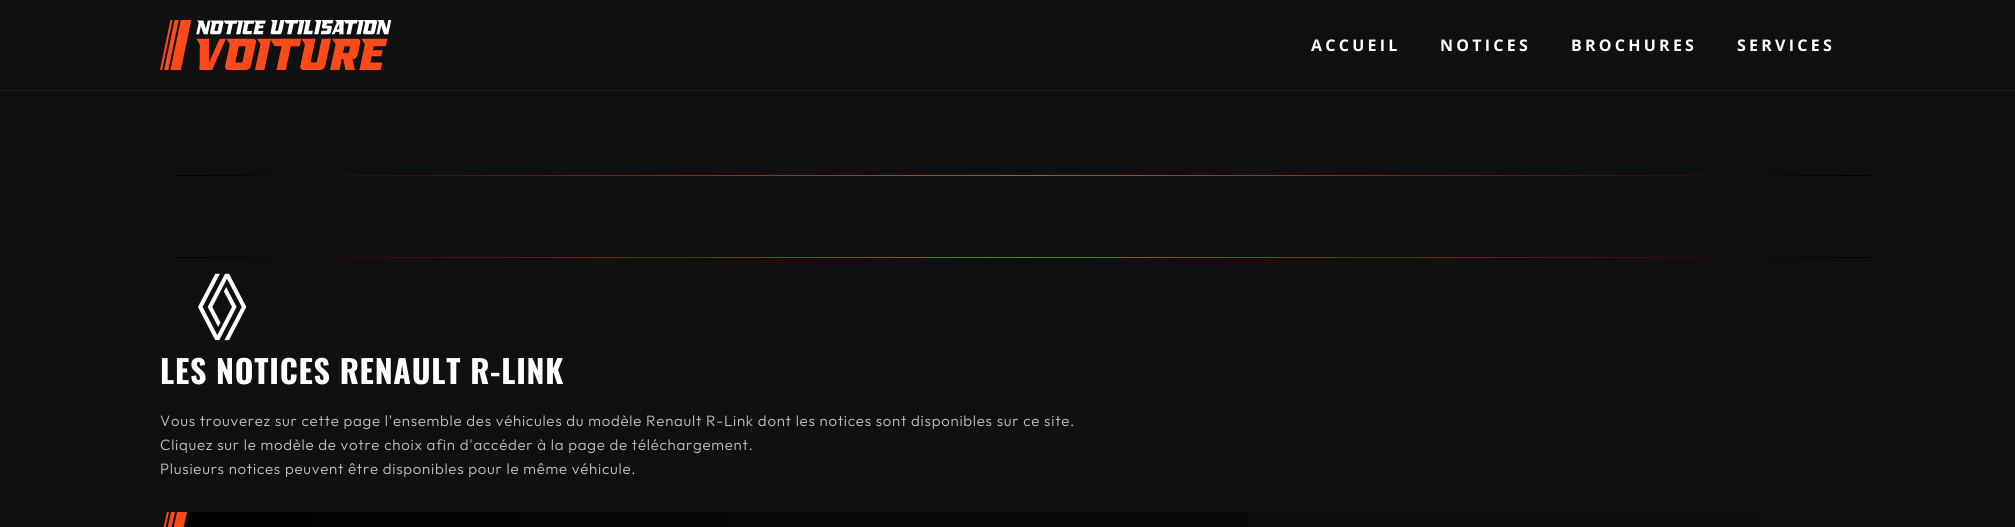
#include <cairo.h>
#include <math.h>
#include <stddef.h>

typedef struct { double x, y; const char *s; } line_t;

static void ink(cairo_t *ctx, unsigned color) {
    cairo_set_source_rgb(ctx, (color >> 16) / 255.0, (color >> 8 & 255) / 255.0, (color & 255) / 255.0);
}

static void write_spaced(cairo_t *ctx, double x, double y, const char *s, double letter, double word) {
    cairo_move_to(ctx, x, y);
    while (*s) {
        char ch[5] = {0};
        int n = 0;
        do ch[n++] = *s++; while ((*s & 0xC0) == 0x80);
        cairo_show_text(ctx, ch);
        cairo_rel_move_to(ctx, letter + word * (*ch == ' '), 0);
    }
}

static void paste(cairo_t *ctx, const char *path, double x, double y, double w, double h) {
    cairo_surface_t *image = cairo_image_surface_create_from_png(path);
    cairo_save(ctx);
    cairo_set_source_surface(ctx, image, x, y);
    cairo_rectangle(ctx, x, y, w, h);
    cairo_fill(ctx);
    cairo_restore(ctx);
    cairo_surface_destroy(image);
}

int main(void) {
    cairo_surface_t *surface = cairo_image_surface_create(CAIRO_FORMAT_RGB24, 2015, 527);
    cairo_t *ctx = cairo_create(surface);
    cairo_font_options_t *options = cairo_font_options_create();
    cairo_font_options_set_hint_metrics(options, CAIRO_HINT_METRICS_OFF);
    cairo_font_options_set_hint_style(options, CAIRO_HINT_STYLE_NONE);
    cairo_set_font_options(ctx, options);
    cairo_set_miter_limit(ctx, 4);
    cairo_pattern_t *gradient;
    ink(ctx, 0x0F1012);
    cairo_paint(ctx);
    ink(ctx, 0x351913);
    cairo_rectangle(ctx, 0, 90, 2015, 1);
    cairo_fill(ctx);
    paste(ctx, "media/1.png", 160, 20, 232, 50);
    cairo_select_font_face(ctx, "Open Sans", CAIRO_FONT_SLANT_NORMAL, CAIRO_FONT_WEIGHT_BOLD);
    cairo_set_font_size(ctx, 16);
    ink(ctx, 0xFFFFFF);
    {
        static const line_t items[] = {
            {1311, 51, "ACCUEIL"},
            {1440, 51, "NOTICES"},
            {1571, 51, "BROCHURES"},
            {1737, 51, "SERVICES"},
        };
        for (size_t i = 0; i < sizeof items / sizeof *items; i++) {
            write_spaced(ctx, items[i].x, items[i].y, items[i].s, 3.25, 0);
        }
    }
    gradient = cairo_pattern_create_linear(175, 176, 1870, 175);
    cairo_pattern_add_color_stop_rgba(gradient, 0, 0, 0, 0, 1);
    cairo_pattern_add_color_stop_rgba(gradient, 0.5, 0.941, 0.208, 0.173, 1);
    cairo_pattern_add_color_stop_rgba(gradient, 1, 0, 0, 0, 1);
    cairo_set_source(ctx, gradient);
    cairo_pattern_destroy(gradient);
    cairo_rectangle(ctx, 175, 175, 1695, 1);
    cairo_fill(ctx);
    gradient = cairo_pattern_create_linear(175, 258, 1870, 257);
    cairo_pattern_add_color_stop_rgba(gradient, 0, 0, 0, 0, 1);
    cairo_pattern_add_color_stop_rgba(gradient, 0.5, 0.941, 0.208, 0.173, 1);
    cairo_pattern_add_color_stop_rgba(gradient, 1, 0, 0, 0, 1);
    cairo_set_source(ctx, gradient);
    cairo_pattern_destroy(gradient);
    cairo_rectangle(ctx, 175, 257, 1695, 1);
    cairo_fill(ctx);
    paste(ctx, "media/2.png", 198, 273, 49, 68);
    cairo_select_font_face(ctx, "Oswald", CAIRO_FONT_SLANT_NORMAL, CAIRO_FONT_WEIGHT_BOLD);
    cairo_set_font_size(ctx, 32);
    ink(ctx, 0xFFFFFF);
    write_spaced(ctx, 160, 384, "LES NOTICES RENAULT R-LINK", 0.75, 0);
    cairo_select_font_face(ctx, "Outfit Light", CAIRO_FONT_SLANT_NORMAL, CAIRO_FONT_WEIGHT_NORMAL);
    cairo_set_font_size(ctx, 15);
    ink(ctx, 0xC3C3C4);
    {
        static const line_t items[] = {
            {160, 426, "Vous trouverez sur cette page l'ensemble des véhicules du modèle Renault R-Link dont les notices sont disponibles sur ce site."},
            {160, 450, "Cliquez sur le modèle de votre choix afin d'accéder à la page de téléchargement."},
            {160, 474, "Plusieurs notices peuvent être disponibles pour le même véhicule."},
        };
        for (size_t i = 0; i < sizeof items / sizeof *items; i++) {
            write_spaced(ctx, items[i].x, items[i].y, items[i].s, 0.75, 0);
        }
    }
    gradient = cairo_pattern_create_linear(160, 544, 1855, 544);
    cairo_pattern_add_color_stop_rgba(gradient, 0, 0, 0, 0, 1);
    cairo_pattern_add_color_stop_rgba(gradient, 0.98, 0.059, 0.063, 0.071, 1);
    cairo_set_source(ctx, gradient);
    cairo_pattern_destroy(gradient);
    cairo_new_path(ctx);
    cairo_move_to(ctx, 167, 512);
    cairo_line_to(ctx, 1862, 512);
    cairo_line_to(ctx, 1848, 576);
    cairo_line_to(ctx, 153, 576);
    cairo_close_path(ctx);
    cairo_fill(ctx);
    ink(ctx, 0xFC4A1A);
    cairo_new_path(ctx);
    cairo_move_to(ctx, 177, 512);
    cairo_line_to(ctx, 187, 512);
    cairo_line_to(ctx, 173, 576);
    cairo_line_to(ctx, 163, 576);
    cairo_close_path(ctx);
    cairo_move_to(ctx, 167, 512);
    cairo_line_to(ctx, 169, 512);
    cairo_line_to(ctx, 155, 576);
    cairo_line_to(ctx, 153, 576);
    cairo_close_path(ctx);
    cairo_fill(ctx);
    cairo_new_path(ctx);
    cairo_move_to(ctx, 171, 512);
    cairo_line_to(ctx, 175, 512);
    cairo_line_to(ctx, 161, 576);
    cairo_line_to(ctx, 157, 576);
    cairo_close_path(ctx);
    cairo_fill(ctx);
    cairo_surface_write_to_png(surface, "image.png");
    cairo_font_options_destroy(options);
    cairo_destroy(ctx);
    cairo_surface_destroy(surface);
    return 0;
}
